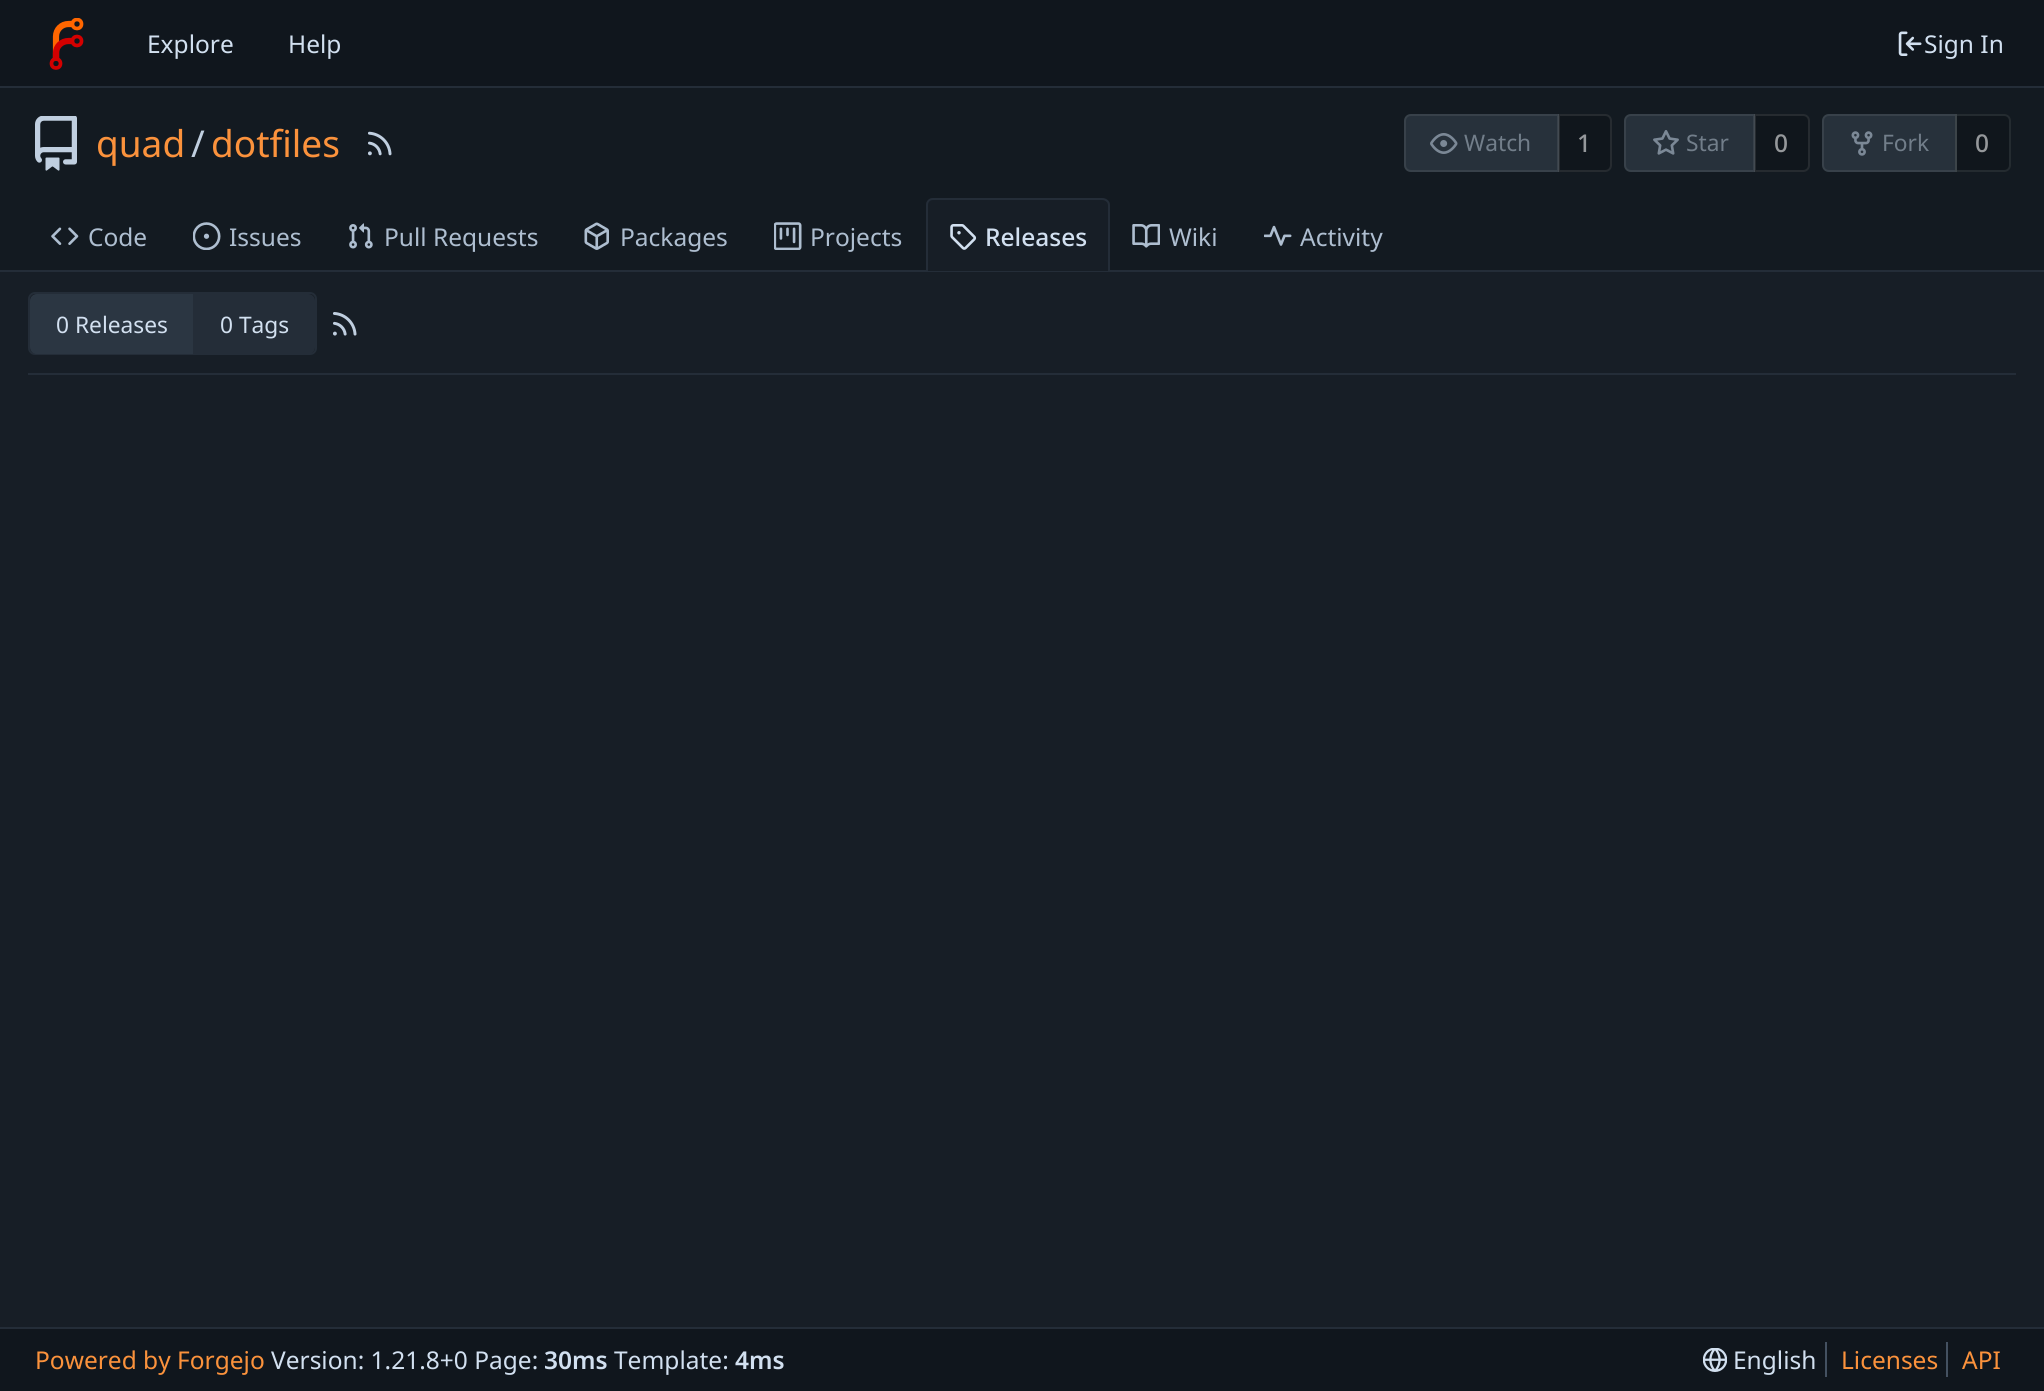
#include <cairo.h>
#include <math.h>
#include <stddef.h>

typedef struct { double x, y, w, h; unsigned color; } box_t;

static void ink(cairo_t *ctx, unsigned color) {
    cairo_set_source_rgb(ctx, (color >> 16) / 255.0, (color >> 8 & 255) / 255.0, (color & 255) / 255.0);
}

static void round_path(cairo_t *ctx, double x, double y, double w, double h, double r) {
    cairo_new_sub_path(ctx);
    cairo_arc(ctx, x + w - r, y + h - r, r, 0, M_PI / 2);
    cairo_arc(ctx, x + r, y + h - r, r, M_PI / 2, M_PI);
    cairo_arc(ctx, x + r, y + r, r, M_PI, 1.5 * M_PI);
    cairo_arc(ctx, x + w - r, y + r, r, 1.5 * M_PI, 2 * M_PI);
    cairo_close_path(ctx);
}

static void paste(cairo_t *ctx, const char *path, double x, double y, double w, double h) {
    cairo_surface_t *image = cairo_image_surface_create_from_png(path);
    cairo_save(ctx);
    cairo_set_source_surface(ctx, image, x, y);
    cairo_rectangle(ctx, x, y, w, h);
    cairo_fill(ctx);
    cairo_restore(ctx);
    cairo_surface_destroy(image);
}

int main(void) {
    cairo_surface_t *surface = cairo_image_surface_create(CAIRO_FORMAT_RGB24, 2044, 1391);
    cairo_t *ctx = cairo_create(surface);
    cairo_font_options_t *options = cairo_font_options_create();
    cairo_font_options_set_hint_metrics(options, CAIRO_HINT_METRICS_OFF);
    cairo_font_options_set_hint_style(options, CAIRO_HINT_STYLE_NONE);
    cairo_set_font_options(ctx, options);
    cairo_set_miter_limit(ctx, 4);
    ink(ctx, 0x171E26);
    cairo_paint(ctx);
    ink(ctx, 0x10161D);
    cairo_rectangle(ctx, 0, 0, 2044, 86);
    cairo_fill(ctx);
    ink(ctx, 0x242D38);
    cairo_rectangle(ctx, 0, 86, 2044, 2);
    cairo_fill(ctx);
    cairo_new_path(ctx);
    cairo_move_to(ctx, 56, 60.5);
    cairo_line_to(ctx, 56, 36.5);
    cairo_curve_to(ctx, 56, 29.5, 61.5, 24, 68.5, 24);
    cairo_line_to(ctx, 73.5, 24);
    ink(ctx, 0xFF6600);
    cairo_set_line_width(ctx, 6.2);
    cairo_stroke(ctx);
    cairo_new_path(ctx);
    cairo_move_to(ctx, 56, 60.5);
    cairo_line_to(ctx, 56, 53);
    cairo_curve_to(ctx, 56, 46.5, 61.5, 41, 68.5, 41);
    cairo_line_to(ctx, 73.5, 41);
    ink(ctx, 0xD40000);
    cairo_stroke(ctx);
    cairo_save(ctx);
    cairo_rectangle(ctx, 40, 18, 53, 52);
    cairo_clip(ctx);
    cairo_arc(ctx, 77, 24, 4.5, 0, 2 * M_PI);
    ink(ctx, 0xFF6600);
    cairo_set_line_width(ctx, 3.7);
    cairo_stroke(ctx);
    cairo_restore(ctx);
    cairo_arc(ctx, 77, 41, 4.5, 0, 2 * M_PI);
    cairo_set_line_width(ctx, 3.7);
    cairo_stroke(ctx);
    cairo_arc(ctx, 56, 63.5, 4.5, 0, 2 * M_PI);
    cairo_stroke(ctx);
    cairo_select_font_face(ctx, "Noto Sans", CAIRO_FONT_SLANT_NORMAL, CAIRO_FONT_WEIGHT_NORMAL);
    cairo_set_font_size(ctx, 24.5);
    ink(ctx, 0xD2E0F0);
    cairo_move_to(ctx, 147, 53);
    cairo_show_text(ctx, "Explore");
    cairo_move_to(ctx, 288, 53);
    cairo_show_text(ctx, "Help");
    paste(ctx, "media/1.png", 1898, 31, 24, 25);
    cairo_move_to(ctx, 1924, 53);
    cairo_show_text(ctx, "Sign In");
    ink(ctx, 0x131A21);
    cairo_rectangle(ctx, 0, 88, 2044, 182);
    cairo_fill(ctx);
    paste(ctx, "media/2.png", 35, 116, 42, 55);
    cairo_set_font_size(ctx, 37);
    ink(ctx, 0xFB923C);
    cairo_move_to(ctx, 96, 157);
    cairo_show_text(ctx, "quad");
    ink(ctx, 0xC0CFE0);
    cairo_move_to(ctx, 191, 157);
    cairo_show_text(ctx, "/");
    ink(ctx, 0xFB923C);
    cairo_move_to(ctx, 211, 157);
    cairo_show_text(ctx, "dotfiles");
    paste(ctx, "media/3.png", 368, 131, 24, 25);
    ink(ctx, 0x27313B);
    cairo_new_path(ctx);
    cairo_move_to(ctx, 1411, 114);
    cairo_line_to(ctx, 1559, 114);
    cairo_line_to(ctx, 1559, 172);
    cairo_line_to(ctx, 1411, 172);
    cairo_curve_to(ctx, 1407, 172, 1404, 169, 1404, 165);
    cairo_line_to(ctx, 1404, 121);
    cairo_curve_to(ctx, 1404, 117, 1407, 114, 1411, 114);
    cairo_close_path(ctx);
    cairo_fill(ctx);
    cairo_new_path(ctx);
    cairo_move_to(ctx, 1411, 115);
    cairo_line_to(ctx, 1558, 115);
    cairo_line_to(ctx, 1558, 171);
    cairo_line_to(ctx, 1411, 171);
    cairo_curve_to(ctx, 1407.5, 171, 1405, 168.5, 1405, 165);
    cairo_line_to(ctx, 1405, 121);
    cairo_curve_to(ctx, 1405, 117.5, 1407.5, 115, 1411, 115);
    cairo_close_path(ctx);
    cairo_set_source_rgba(ctx, 0.584, 0.596, 0.608, 0.16);
    cairo_set_line_width(ctx, 2);
    cairo_stroke(ctx);
    paste(ctx, "media/4.png", 1430, 133, 28, 21);
    cairo_set_font_size(ctx, 22.75);
    ink(ctx, 0x727E8A);
    cairo_move_to(ctx, 1464, 151);
    cairo_show_text(ctx, "Watch");
    cairo_set_source_rgba(ctx, 0, 0, 0, 0.14);
    cairo_new_path(ctx);
    cairo_move_to(ctx, 1558, 114);
    cairo_line_to(ctx, 1605, 114);
    cairo_curve_to(ctx, 1609, 114, 1612, 117, 1612, 121);
    cairo_line_to(ctx, 1612, 165);
    cairo_curve_to(ctx, 1612, 169, 1609, 172, 1605, 172);
    cairo_line_to(ctx, 1558, 172);
    cairo_close_path(ctx);
    cairo_fill(ctx);
    cairo_new_path(ctx);
    cairo_move_to(ctx, 1559, 115);
    cairo_line_to(ctx, 1605, 115);
    cairo_curve_to(ctx, 1608.5, 115, 1611, 117.5, 1611, 121);
    cairo_line_to(ctx, 1611, 165);
    cairo_curve_to(ctx, 1611, 168.5, 1608.5, 171, 1605, 171);
    cairo_line_to(ctx, 1559, 171);
    cairo_close_path(ctx);
    cairo_set_source_rgba(ctx, 1, 1, 1, 0.09);
    cairo_stroke(ctx);
    cairo_select_font_face(ctx, "Noto Sans Medium", CAIRO_FONT_SLANT_NORMAL, CAIRO_FONT_WEIGHT_NORMAL);
    cairo_set_font_size(ctx, 24.5);
    ink(ctx, 0x95989B);
    cairo_move_to(ctx, 1577, 152);
    cairo_show_text(ctx, "1");
    ink(ctx, 0x27313B);
    cairo_new_path(ctx);
    cairo_move_to(ctx, 1631, 114);
    cairo_line_to(ctx, 1755, 114);
    cairo_line_to(ctx, 1755, 172);
    cairo_line_to(ctx, 1631, 172);
    cairo_curve_to(ctx, 1627, 172, 1624, 169, 1624, 165);
    cairo_line_to(ctx, 1624, 121);
    cairo_curve_to(ctx, 1624, 117, 1627, 114, 1631, 114);
    cairo_close_path(ctx);
    cairo_fill(ctx);
    cairo_new_path(ctx);
    cairo_move_to(ctx, 1631, 115);
    cairo_line_to(ctx, 1754, 115);
    cairo_line_to(ctx, 1754, 171);
    cairo_line_to(ctx, 1631, 171);
    cairo_curve_to(ctx, 1627.5, 171, 1625, 168.5, 1625, 165);
    cairo_line_to(ctx, 1625, 121);
    cairo_curve_to(ctx, 1625, 117.5, 1627.5, 115, 1631, 115);
    cairo_close_path(ctx);
    cairo_set_source_rgba(ctx, 0.584, 0.596, 0.608, 0.16);
    cairo_stroke(ctx);
    paste(ctx, "media/5.png", 1653, 130, 26, 25);
    cairo_select_font_face(ctx, "Noto Sans", CAIRO_FONT_SLANT_NORMAL, CAIRO_FONT_WEIGHT_NORMAL);
    cairo_set_font_size(ctx, 22.75);
    ink(ctx, 0x727E8A);
    cairo_move_to(ctx, 1686, 151);
    cairo_show_text(ctx, "Star");
    cairo_set_source_rgba(ctx, 0, 0, 0, 0.14);
    cairo_new_path(ctx);
    cairo_move_to(ctx, 1754, 114);
    cairo_line_to(ctx, 1803, 114);
    cairo_curve_to(ctx, 1807, 114, 1810, 117, 1810, 121);
    cairo_line_to(ctx, 1810, 165);
    cairo_curve_to(ctx, 1810, 169, 1807, 172, 1803, 172);
    cairo_line_to(ctx, 1754, 172);
    cairo_close_path(ctx);
    cairo_fill(ctx);
    cairo_new_path(ctx);
    cairo_move_to(ctx, 1755, 115);
    cairo_line_to(ctx, 1803, 115);
    cairo_curve_to(ctx, 1806.5, 115, 1809, 117.5, 1809, 121);
    cairo_line_to(ctx, 1809, 165);
    cairo_curve_to(ctx, 1809, 168.5, 1806.5, 171, 1803, 171);
    cairo_line_to(ctx, 1755, 171);
    cairo_close_path(ctx);
    cairo_set_source_rgba(ctx, 1, 1, 1, 0.09);
    cairo_stroke(ctx);
    cairo_select_font_face(ctx, "Noto Sans Medium", CAIRO_FONT_SLANT_NORMAL, CAIRO_FONT_WEIGHT_NORMAL);
    cairo_set_font_size(ctx, 24.5);
    ink(ctx, 0x95989B);
    cairo_move_to(ctx, 1774, 152);
    cairo_show_text(ctx, "0");
    ink(ctx, 0x27313B);
    cairo_new_path(ctx);
    cairo_move_to(ctx, 1829, 114);
    cairo_line_to(ctx, 1957, 114);
    cairo_line_to(ctx, 1957, 172);
    cairo_line_to(ctx, 1829, 172);
    cairo_curve_to(ctx, 1825, 172, 1822, 169, 1822, 165);
    cairo_line_to(ctx, 1822, 121);
    cairo_curve_to(ctx, 1822, 117, 1825, 114, 1829, 114);
    cairo_close_path(ctx);
    cairo_fill(ctx);
    cairo_new_path(ctx);
    cairo_move_to(ctx, 1829, 115);
    cairo_line_to(ctx, 1956, 115);
    cairo_line_to(ctx, 1956, 171);
    cairo_line_to(ctx, 1829, 171);
    cairo_curve_to(ctx, 1825.5, 171, 1823, 168.5, 1823, 165);
    cairo_line_to(ctx, 1823, 121);
    cairo_curve_to(ctx, 1823, 117.5, 1825.5, 115, 1829, 115);
    cairo_close_path(ctx);
    cairo_set_source_rgba(ctx, 0.584, 0.596, 0.608, 0.16);
    cairo_stroke(ctx);
    paste(ctx, "media/6.png", 1851, 131, 22, 25);
    cairo_select_font_face(ctx, "Noto Sans", CAIRO_FONT_SLANT_NORMAL, CAIRO_FONT_WEIGHT_NORMAL);
    cairo_set_font_size(ctx, 22.75);
    ink(ctx, 0x727E8A);
    cairo_move_to(ctx, 1882, 151);
    cairo_show_text(ctx, "Fork");
    cairo_set_source_rgba(ctx, 0.035, 0.047, 0.059, 0.25);
    cairo_new_path(ctx);
    cairo_move_to(ctx, 1955, 114);
    cairo_line_to(ctx, 2004, 114);
    cairo_curve_to(ctx, 2008, 114, 2011, 117, 2011, 121);
    cairo_line_to(ctx, 2011, 165);
    cairo_curve_to(ctx, 2011, 169, 2008, 172, 2004, 172);
    cairo_line_to(ctx, 1955, 172);
    cairo_close_path(ctx);
    cairo_fill(ctx);
    cairo_new_path(ctx);
    cairo_move_to(ctx, 1956, 115);
    cairo_line_to(ctx, 2004, 115);
    cairo_curve_to(ctx, 2007.5, 115, 2010, 117.5, 2010, 121);
    cairo_line_to(ctx, 2010, 165);
    cairo_curve_to(ctx, 2010, 168.5, 2007.5, 171, 2004, 171);
    cairo_line_to(ctx, 1956, 171);
    cairo_close_path(ctx);
    cairo_set_source_rgba(ctx, 0.584, 0.596, 0.608, 0.16);
    cairo_stroke(ctx);
    cairo_select_font_face(ctx, "Noto Sans Medium", CAIRO_FONT_SLANT_NORMAL, CAIRO_FONT_WEIGHT_NORMAL);
    cairo_set_font_size(ctx, 24.5);
    ink(ctx, 0x95989B);
    cairo_move_to(ctx, 1975, 152);
    cairo_show_text(ctx, "0");
    paste(ctx, "media/7.png", 51, 227, 28, 18);
    cairo_select_font_face(ctx, "Noto Sans", CAIRO_FONT_SLANT_NORMAL, CAIRO_FONT_WEIGHT_NORMAL);
    ink(ctx, 0xAEBED0);
    cairo_move_to(ctx, 88, 246);
    cairo_show_text(ctx, "Code");
    paste(ctx, "media/8.png", 193, 222, 28, 28);
    cairo_move_to(ctx, 229, 246);
    cairo_show_text(ctx, "Issues");
    paste(ctx, "media/9.png", 349, 223, 24, 26);
    cairo_move_to(ctx, 384, 246);
    cairo_show_text(ctx, "Pull Requests");
    paste(ctx, "media/10.png", 584, 222, 25, 28);
    cairo_move_to(ctx, 620, 246);
    cairo_show_text(ctx, "Packages");
    paste(ctx, "media/11.png", 774, 222, 28, 28);
    cairo_move_to(ctx, 810, 246);
    cairo_show_text(ctx, "Projects");
    ink(ctx, 0x242D38);
    cairo_rectangle(ctx, 0, 270, 2044, 2);
    cairo_fill(ctx);
    ink(ctx, 0x171E26);
    cairo_new_path(ctx);
    cairo_move_to(ctx, 933, 198);
    cairo_line_to(ctx, 1103, 198);
    cairo_curve_to(ctx, 1107, 198, 1110, 201, 1110, 205);
    cairo_line_to(ctx, 1110, 271);
    cairo_line_to(ctx, 926, 271);
    cairo_line_to(ctx, 926, 205);
    cairo_curve_to(ctx, 926, 201, 929, 198, 933, 198);
    cairo_close_path(ctx);
    cairo_fill(ctx);
    cairo_save(ctx);
    cairo_rectangle(ctx, 28, 196, 1988, 75);
    cairo_clip(ctx);
    ink(ctx, 0x242D38);
    cairo_set_fill_rule(ctx, CAIRO_FILL_RULE_EVEN_ODD);
    cairo_new_path(ctx);
    cairo_move_to(ctx, 933, 198);
    cairo_line_to(ctx, 1102, 198);
    cairo_curve_to(ctx, 1106, 198, 1110, 201, 1110, 205);
    cairo_line_to(ctx, 1110, 273);
    cairo_line_to(ctx, 926, 273);
    cairo_line_to(ctx, 926, 205);
    cairo_curve_to(ctx, 926, 201, 929, 198, 933, 198);
    cairo_close_path(ctx);
    cairo_move_to(ctx, 933, 200);
    cairo_line_to(ctx, 1102, 200);
    cairo_curve_to(ctx, 1105, 200, 1108, 202, 1108, 205);
    cairo_line_to(ctx, 1108, 273);
    cairo_line_to(ctx, 928, 273);
    cairo_line_to(ctx, 928, 205);
    cairo_curve_to(ctx, 928, 202, 930, 200, 933, 200);
    cairo_close_path(ctx);
    cairo_fill(ctx);
    cairo_restore(ctx);
    paste(ctx, "media/12.png", 950, 224, 27, 26);
    cairo_select_font_face(ctx, "Noto Sans Medium", CAIRO_FONT_SLANT_NORMAL, CAIRO_FONT_WEIGHT_NORMAL);
    ink(ctx, 0xD2E0F0);
    cairo_move_to(ctx, 985, 246);
    cairo_show_text(ctx, "Releases");
    paste(ctx, "media/13.png", 1132, 224, 28, 24);
    cairo_select_font_face(ctx, "Noto Sans", CAIRO_FONT_SLANT_NORMAL, CAIRO_FONT_WEIGHT_NORMAL);
    ink(ctx, 0xAEBED0);
    cairo_move_to(ctx, 1169, 246);
    cairo_show_text(ctx, "Wiki");
    paste(ctx, "media/14.png", 1264, 225, 28, 21);
    cairo_move_to(ctx, 1300, 246);
    cairo_show_text(ctx, "Activity");
    round_path(ctx, 29, 293, 287, 61, 6);
    ink(ctx, 0x242D38);
    cairo_stroke(ctx);
    ink(ctx, 0x2B3642);
    cairo_new_path(ctx);
    cairo_move_to(ctx, 37, 294);
    cairo_line_to(ctx, 194, 294);
    cairo_line_to(ctx, 194, 354);
    cairo_line_to(ctx, 37, 354);
    cairo_curve_to(ctx, 33, 354, 30, 351, 30, 347);
    cairo_line_to(ctx, 30, 301);
    cairo_curve_to(ctx, 30, 297, 33, 294, 37, 294);
    cairo_close_path(ctx);
    cairo_fill(ctx);
    cairo_set_font_size(ctx, 22.75);
    ink(ctx, 0xD2E0F0);
    cairo_move_to(ctx, 56, 333);
    cairo_show_text(ctx, "0 Releases");
    ink(ctx, 0x242D38);
    cairo_rectangle(ctx, 193, 294, 1, 60);
    cairo_fill(ctx);
    cairo_new_path(ctx);
    cairo_move_to(ctx, 194, 294);
    cairo_line_to(ctx, 308, 294);
    cairo_curve_to(ctx, 312, 294, 315, 297, 315, 301);
    cairo_line_to(ctx, 315, 347);
    cairo_curve_to(ctx, 315, 351, 312, 354, 308, 354);
    cairo_line_to(ctx, 194, 354);
    cairo_close_path(ctx);
    cairo_fill(ctx);
    ink(ctx, 0xD2E0F0);
    cairo_move_to(ctx, 220, 333);
    cairo_show_text(ctx, "0 Tags");
    paste(ctx, "media/15.png", 333, 312, 24, 24);
    {
        static const box_t items[] = {
            {28, 373, 1988, 2, 0x242D38},
            {0, 1329, 2044, 62, 0x10161D},
            {0, 1327, 2044, 2, 0x242D38},
        };
        for (size_t i = 0; i < sizeof items / sizeof *items; i++) {
            ink(ctx, items[i].color);
            cairo_rectangle(ctx, items[i].x, items[i].y, items[i].w, items[i].h);
            cairo_fill(ctx);
        }
    }
    cairo_set_font_size(ctx, 24.5);
    ink(ctx, 0xFB923C);
    cairo_move_to(ctx, 35, 1369);
    cairo_show_text(ctx, "Powered by Forgejo");
    ink(ctx, 0xD2E0F0);
    cairo_move_to(ctx, 271, 1369);
    cairo_show_text(ctx, "Version: 1.21.8+0 Page:");
    cairo_select_font_face(ctx, "Noto Sans SemiBold", CAIRO_FONT_SLANT_NORMAL, CAIRO_FONT_WEIGHT_NORMAL);
    cairo_move_to(ctx, 544, 1369);
    cairo_show_text(ctx, "30ms");
    cairo_select_font_face(ctx, "Noto Sans", CAIRO_FONT_SLANT_NORMAL, CAIRO_FONT_WEIGHT_NORMAL);
    cairo_move_to(ctx, 614, 1369);
    cairo_show_text(ctx, "Template:");
    cairo_select_font_face(ctx, "Noto Sans SemiBold", CAIRO_FONT_SLANT_NORMAL, CAIRO_FONT_WEIGHT_NORMAL);
    cairo_move_to(ctx, 735, 1369);
    cairo_show_text(ctx, "4ms");
    paste(ctx, "media/16.png", 1703, 1348, 24, 24);
    cairo_select_font_face(ctx, "Noto Sans", CAIRO_FONT_SLANT_NORMAL, CAIRO_FONT_WEIGHT_NORMAL);
    cairo_move_to(ctx, 1733, 1369);
    cairo_show_text(ctx, "English");
    ink(ctx, 0x445161);
    cairo_rectangle(ctx, 1825, 1342, 2, 35);
    cairo_fill(ctx);
    ink(ctx, 0xFB923C);
    cairo_move_to(ctx, 1841, 1369);
    cairo_show_text(ctx, "Licenses");
    ink(ctx, 0x445161);
    cairo_rectangle(ctx, 1946, 1342, 2, 35);
    cairo_fill(ctx);
    ink(ctx, 0xFB923C);
    cairo_move_to(ctx, 1962, 1369);
    cairo_show_text(ctx, "API");
    cairo_surface_write_to_png(surface, "image.png");
    cairo_font_options_destroy(options);
    cairo_destroy(ctx);
    cairo_surface_destroy(surface);
    return 0;
}
